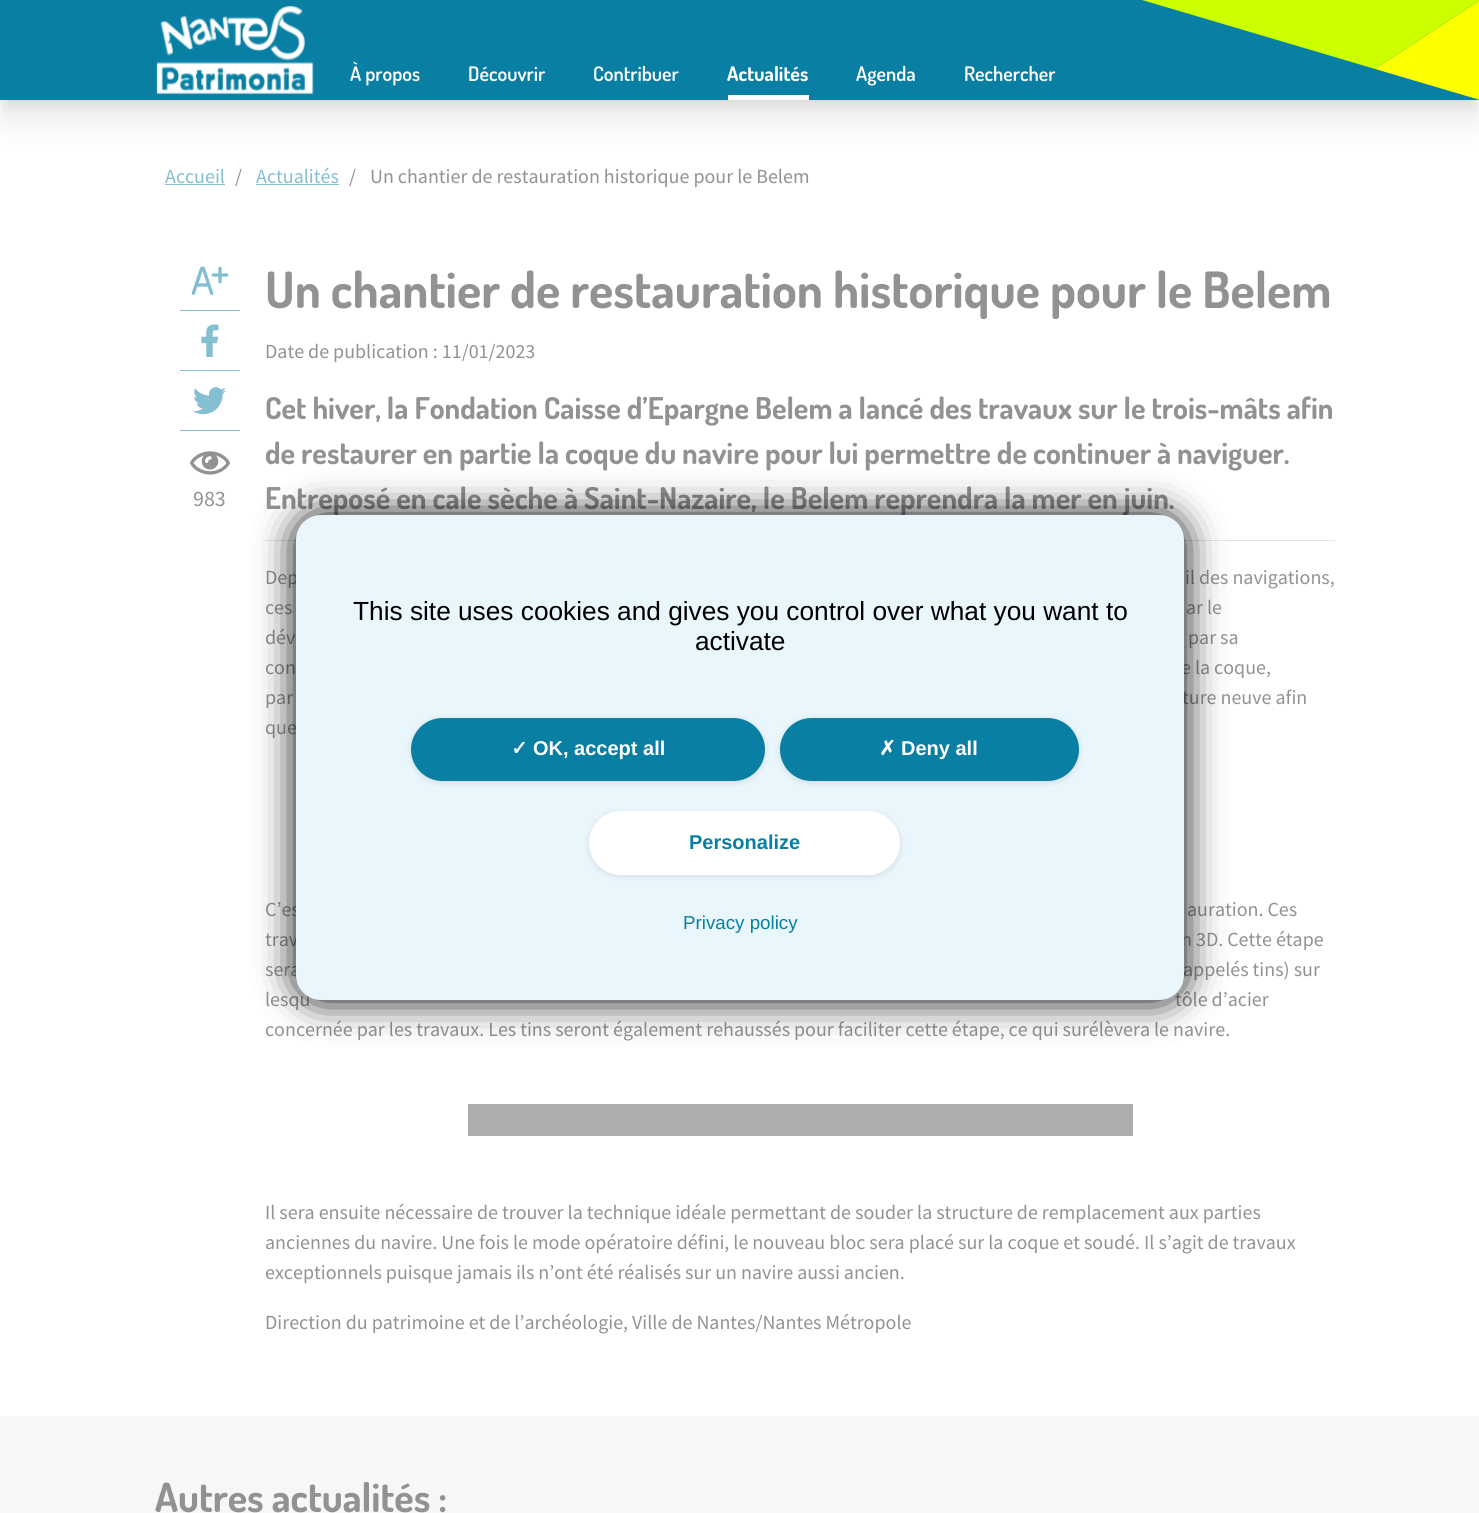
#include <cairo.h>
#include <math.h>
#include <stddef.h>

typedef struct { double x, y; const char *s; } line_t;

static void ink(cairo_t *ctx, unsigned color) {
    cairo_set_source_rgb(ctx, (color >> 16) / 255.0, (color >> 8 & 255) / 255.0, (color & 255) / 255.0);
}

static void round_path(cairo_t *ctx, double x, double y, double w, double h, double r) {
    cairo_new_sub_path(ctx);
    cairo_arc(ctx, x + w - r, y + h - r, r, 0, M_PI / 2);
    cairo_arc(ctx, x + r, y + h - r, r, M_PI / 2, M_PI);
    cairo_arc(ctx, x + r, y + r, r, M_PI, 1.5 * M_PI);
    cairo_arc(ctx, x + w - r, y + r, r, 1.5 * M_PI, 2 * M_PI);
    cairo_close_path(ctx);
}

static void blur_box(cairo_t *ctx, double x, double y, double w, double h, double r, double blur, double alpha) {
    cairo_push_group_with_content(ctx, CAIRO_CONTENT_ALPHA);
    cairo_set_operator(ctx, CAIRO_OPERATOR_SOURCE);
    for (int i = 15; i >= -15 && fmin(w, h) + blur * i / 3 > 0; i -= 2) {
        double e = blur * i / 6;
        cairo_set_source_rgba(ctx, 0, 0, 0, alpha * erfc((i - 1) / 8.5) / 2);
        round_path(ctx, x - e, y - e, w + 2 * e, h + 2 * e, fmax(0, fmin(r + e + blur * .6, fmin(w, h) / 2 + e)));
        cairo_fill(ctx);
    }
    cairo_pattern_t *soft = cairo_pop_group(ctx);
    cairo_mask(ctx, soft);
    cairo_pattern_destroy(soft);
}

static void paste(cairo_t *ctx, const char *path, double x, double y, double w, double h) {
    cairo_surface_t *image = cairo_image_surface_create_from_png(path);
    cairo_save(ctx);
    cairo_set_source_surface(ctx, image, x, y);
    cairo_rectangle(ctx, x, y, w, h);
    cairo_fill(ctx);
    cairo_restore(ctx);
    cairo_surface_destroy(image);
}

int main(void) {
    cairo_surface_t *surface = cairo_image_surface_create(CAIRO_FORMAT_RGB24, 1479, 1513);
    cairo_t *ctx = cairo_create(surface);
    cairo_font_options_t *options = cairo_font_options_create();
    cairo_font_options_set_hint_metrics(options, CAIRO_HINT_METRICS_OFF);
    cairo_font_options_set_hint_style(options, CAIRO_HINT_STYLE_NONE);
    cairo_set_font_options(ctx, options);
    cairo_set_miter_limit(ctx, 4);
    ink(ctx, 0xFFFFFF);
    cairo_paint(ctx);
    ink(ctx, 0x131313);
    blur_box(ctx, 0, 19, 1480, 100, 0, 15.5, 0.1);
    blur_box(ctx, 6, 15, 1468, 88, 0, 6, 0.1);
    ink(ctx, 0x087FA3);
    cairo_rectangle(ctx, 0, 0, 1479, 100);
    cairo_fill(ctx);
    ink(ctx, 0xCCFF00);
    cairo_set_fill_rule(ctx, CAIRO_FILL_RULE_EVEN_ODD);
    cairo_new_path(ctx);
    cairo_move_to(ctx, 1142, 0);
    cairo_line_to(ctx, 1375, 69);
    cairo_line_to(ctx, 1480, 0);
    cairo_close_path(ctx);
    cairo_fill(ctx);
    ink(ctx, 0xFCFF00);
    cairo_new_path(ctx);
    cairo_move_to(ctx, 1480, 0);
    cairo_line_to(ctx, 1375, 69);
    cairo_line_to(ctx, 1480, 100);
    cairo_close_path(ctx);
    cairo_fill(ctx);
    paste(ctx, "media/1.png", 156, 5, 158, 90);
    cairo_select_font_face(ctx, "Dosis SemiBold", CAIRO_FONT_SLANT_NORMAL, CAIRO_FONT_WEIGHT_NORMAL);
    cairo_set_font_size(ctx, 20);
    ink(ctx, 0xFFFFFF);
    {
        static const line_t items[] = {
            {350, 81, "À propos"},
            {468, 81, "Découvrir"},
            {593, 81, "Contribuer"},
        };
        for (size_t i = 0; i < sizeof items / sizeof *items; i++) {
            cairo_move_to(ctx, items[i].x, items[i].y);
            cairo_show_text(ctx, items[i].s);
        }
    }
    cairo_rectangle(ctx, 728, 95, 81, 5);
    cairo_fill(ctx);
    cairo_select_font_face(ctx, "Dosis", CAIRO_FONT_SLANT_NORMAL, CAIRO_FONT_WEIGHT_BOLD);
    cairo_move_to(ctx, 727, 81);
    cairo_show_text(ctx, "Actualités");
    cairo_select_font_face(ctx, "Dosis SemiBold", CAIRO_FONT_SLANT_NORMAL, CAIRO_FONT_WEIGHT_NORMAL);
    cairo_move_to(ctx, 856, 81);
    cairo_show_text(ctx, "Agenda");
    cairo_move_to(ctx, 964, 81);
    cairo_show_text(ctx, "Rechercher");
    cairo_select_font_face(ctx, "Source Sans Pro", CAIRO_FONT_SLANT_NORMAL, CAIRO_FONT_WEIGHT_NORMAL);
    ink(ctx, 0x84BFD1);
    cairo_move_to(ctx, 165, 183);
    cairo_show_text(ctx, "Accueil");
    cairo_rectangle(ctx, 165, 184, 60, 1);
    cairo_fill(ctx);
    ink(ctx, 0x909294);
    cairo_move_to(ctx, 235, 183);
    cairo_show_text(ctx, "/");
    ink(ctx, 0x84BFD1);
    cairo_move_to(ctx, 256, 183);
    cairo_show_text(ctx, "Actualités");
    cairo_rectangle(ctx, 256, 184, 83, 1);
    cairo_fill(ctx);
    ink(ctx, 0x909294);
    cairo_move_to(ctx, 349, 183);
    cairo_show_text(ctx, "/");
    cairo_move_to(ctx, 370, 183);
    cairo_show_text(ctx, "Un chantier de restauration historique pour le Belem");
    ink(ctx, 0x84BFD1);
    cairo_rectangle(ctx, 180, 310, 60, 1);
    cairo_fill(ctx);
    paste(ctx, "media/2.png", 191, 266, 38, 29);
    cairo_rectangle(ctx, 180, 370, 60, 1);
    cairo_fill(ctx);
    paste(ctx, "media/3.png", 201, 324, 18, 33);
    cairo_rectangle(ctx, 180, 430, 60, 1);
    cairo_fill(ctx);
    paste(ctx, "media/4.png", 193, 387, 33, 28);
    paste(ctx, "media/5.png", 190, 451, 40, 24);
    cairo_set_font_size(ctx, 22);
    ink(ctx, 0x909294);
    cairo_move_to(ctx, 193, 506);
    cairo_show_text(ctx, "983");
    cairo_select_font_face(ctx, "Dosis", CAIRO_FONT_SLANT_NORMAL, CAIRO_FONT_WEIGHT_BOLD);
    cairo_set_font_size(ctx, 50);
    cairo_move_to(ctx, 265, 308);
    cairo_show_text(ctx, "Un chantier de restauration historique pour le Belem");
    cairo_select_font_face(ctx, "Source Sans Pro", CAIRO_FONT_SLANT_NORMAL, CAIRO_FONT_WEIGHT_NORMAL);
    cairo_set_font_size(ctx, 20);
    cairo_move_to(ctx, 265, 358);
    cairo_show_text(ctx, "Date de publication : 11/01/2023");
    cairo_select_font_face(ctx, "Dosis", CAIRO_FONT_SLANT_NORMAL, CAIRO_FONT_WEIGHT_BOLD);
    cairo_set_font_size(ctx, 30);
    {
        static const line_t items[] = {
            {265, 419, "Cet hiver, la Fondation Caisse d’Epargne Belem a lancé des travaux sur le trois-mâts afin"},
            {265, 464, "de restaurer en partie la coque du navire pour lui permettre de continuer à naviguer."},
            {265, 509, "Entreposé en cale sèche à Saint-Nazaire, le Belem reprendra la mer en juin."},
        };
        for (size_t i = 0; i < sizeof items / sizeof *items; i++) {
            cairo_move_to(ctx, items[i].x, items[i].y);
            cairo_show_text(ctx, items[i].s);
        }
    }
    ink(ctx, 0xE4E4E5);
    cairo_rectangle(ctx, 265, 540, 1070, 1);
    cairo_fill(ctx);
    cairo_select_font_face(ctx, "Source Sans Pro", CAIRO_FONT_SLANT_NORMAL, CAIRO_FONT_WEIGHT_NORMAL);
    cairo_set_font_size(ctx, 20);
    ink(ctx, 0x909294);
    {
        static const line_t items[] = {
            {265, 584, "Dep"},
            {1185, 584, "il des navigations,"},
            {265, 614, "ces"},
            {1186, 614, "ar le"},
            {265, 644, "dév"},
            {1188, 644, "par sa"},
            {265, 674, "con"},
            {1181, 674, "e la coque,"},
            {265, 704, "par"},
            {1182, 704, "ture neuve afin"},
            {265, 734, "que"},
            {265, 916, "C’es"},
            {1187, 916, "auration. Ces"},
            {265, 946, "trav"},
            {1181, 946, "n 3D. Cette étape"},
            {265, 976, "sera"},
            {1183, 976, "appelés tins) sur"},
            {265, 1006, "lesqu"},
            {1175, 1006, "tôle d’acier"},
            {265, 1036, "concernée par les travaux. Les tins seront également rehaussés pour faciliter cette étape, ce qui surélèvera le navire."},
        };
        for (size_t i = 0; i < sizeof items / sizeof *items; i++) {
            cairo_move_to(ctx, items[i].x, items[i].y);
            cairo_show_text(ctx, items[i].s);
        }
    }
    ink(ctx, 0xADADAD);
    cairo_rectangle(ctx, 468, 1104, 665, 32);
    cairo_fill(ctx);
    ink(ctx, 0x909294);
    {
        static const line_t items[] = {
            {265, 1219, "Il sera ensuite nécessaire de trouver la technique idéale permettant de souder la structure de remplacement aux parties"},
            {265, 1249, "anciennes du navire. Une fois le mode opératoire défini, le nouveau bloc sera placé sur la coque et soudé. Il s’agit de travaux"},
            {265, 1279, "exceptionnels puisque jamais ils n’ont été réalisés sur un navire aussi ancien."},
            {265, 1329, "Direction du patrimoine et de l’archéologie, Ville de Nantes/Nantes Métropole"},
        };
        for (size_t i = 0; i < sizeof items / sizeof *items; i++) {
            cairo_move_to(ctx, items[i].x, items[i].y);
            cairo_show_text(ctx, items[i].s);
        }
    }
    ink(ctx, 0xF7F7F7);
    cairo_rectangle(ctx, 0, 1416, 1479, 97);
    cairo_fill(ctx);
    cairo_select_font_face(ctx, "Dosis", CAIRO_FONT_SLANT_NORMAL, CAIRO_FONT_WEIGHT_BOLD);
    cairo_set_font_size(ctx, 40);
    ink(ctx, 0x909294);
    cairo_move_to(ctx, 155, 1512);
    cairo_show_text(ctx, "Autres actualités :");
    ink(ctx, 0x000000);
    blur_box(ctx, 296, 515, 888, 485, 25, 19, 1);
    ink(ctx, 0xE9F6FB);
    round_path(ctx, 296, 515, 888, 485, 25);
    cairo_fill(ctx);
    cairo_select_font_face(ctx, "Liberation Sans", CAIRO_FONT_SLANT_NORMAL, CAIRO_FONT_WEIGHT_NORMAL);
    cairo_set_font_size(ctx, 26.25);
    ink(ctx, 0x000000);
    cairo_move_to(ctx, 353, 620);
    cairo_show_text(ctx, "This site uses cookies and gives you control over what you want to");
    cairo_move_to(ctx, 695, 650);
    cairo_show_text(ctx, "activate");
    ink(ctx, 0x2B2A52);
    blur_box(ctx, 411, 719, 354, 64, 32, 3, 0.13);
    ink(ctx, 0x087FA3);
    round_path(ctx, 411, 718, 354, 63, 31.5);
    cairo_fill(ctx);
    cairo_select_font_face(ctx, "DejaVu Sans", CAIRO_FONT_SLANT_NORMAL, CAIRO_FONT_WEIGHT_BOLD);
    cairo_set_font_size(ctx, 20);
    ink(ctx, 0xFFFFFF);
    cairo_move_to(ctx, 511, 755);
    cairo_show_text(ctx, "✓");
    cairo_select_font_face(ctx, "Liberation Sans", CAIRO_FONT_SLANT_NORMAL, CAIRO_FONT_WEIGHT_BOLD);
    cairo_move_to(ctx, 533, 755);
    cairo_show_text(ctx, "OK, accept all");
    ink(ctx, 0x2B2A52);
    blur_box(ctx, 780, 719, 299, 64, 32, 3, 0.13);
    ink(ctx, 0x087FA3);
    round_path(ctx, 780, 718, 299, 63, 31.5);
    cairo_fill(ctx);
    cairo_select_font_face(ctx, "DejaVu Sans", CAIRO_FONT_SLANT_NORMAL, CAIRO_FONT_WEIGHT_BOLD);
    ink(ctx, 0xFFFFFF);
    cairo_move_to(ctx, 879, 755);
    cairo_show_text(ctx, "✗");
    cairo_select_font_face(ctx, "Liberation Sans", CAIRO_FONT_SLANT_NORMAL, CAIRO_FONT_WEIGHT_BOLD);
    cairo_move_to(ctx, 901, 755);
    cairo_show_text(ctx, "Deny all");
    ink(ctx, 0x2B2A52);
    blur_box(ctx, 589, 813, 311, 63, 31.5, 3, 0.13);
    ink(ctx, 0xFFFFFF);
    round_path(ctx, 589, 811, 311, 64, 32);
    cairo_fill(ctx);
    ink(ctx, 0x087FA3);
    cairo_move_to(ctx, 689, 849);
    cairo_show_text(ctx, "Personalize");
    cairo_select_font_face(ctx, "Liberation Sans", CAIRO_FONT_SLANT_NORMAL, CAIRO_FONT_WEIGHT_NORMAL);
    cairo_set_font_size(ctx, 18.75);
    cairo_move_to(ctx, 683, 929);
    cairo_show_text(ctx, "Privacy policy");
    cairo_surface_write_to_png(surface, "image.png");
    cairo_font_options_destroy(options);
    cairo_destroy(ctx);
    cairo_surface_destroy(surface);
    return 0;
}
